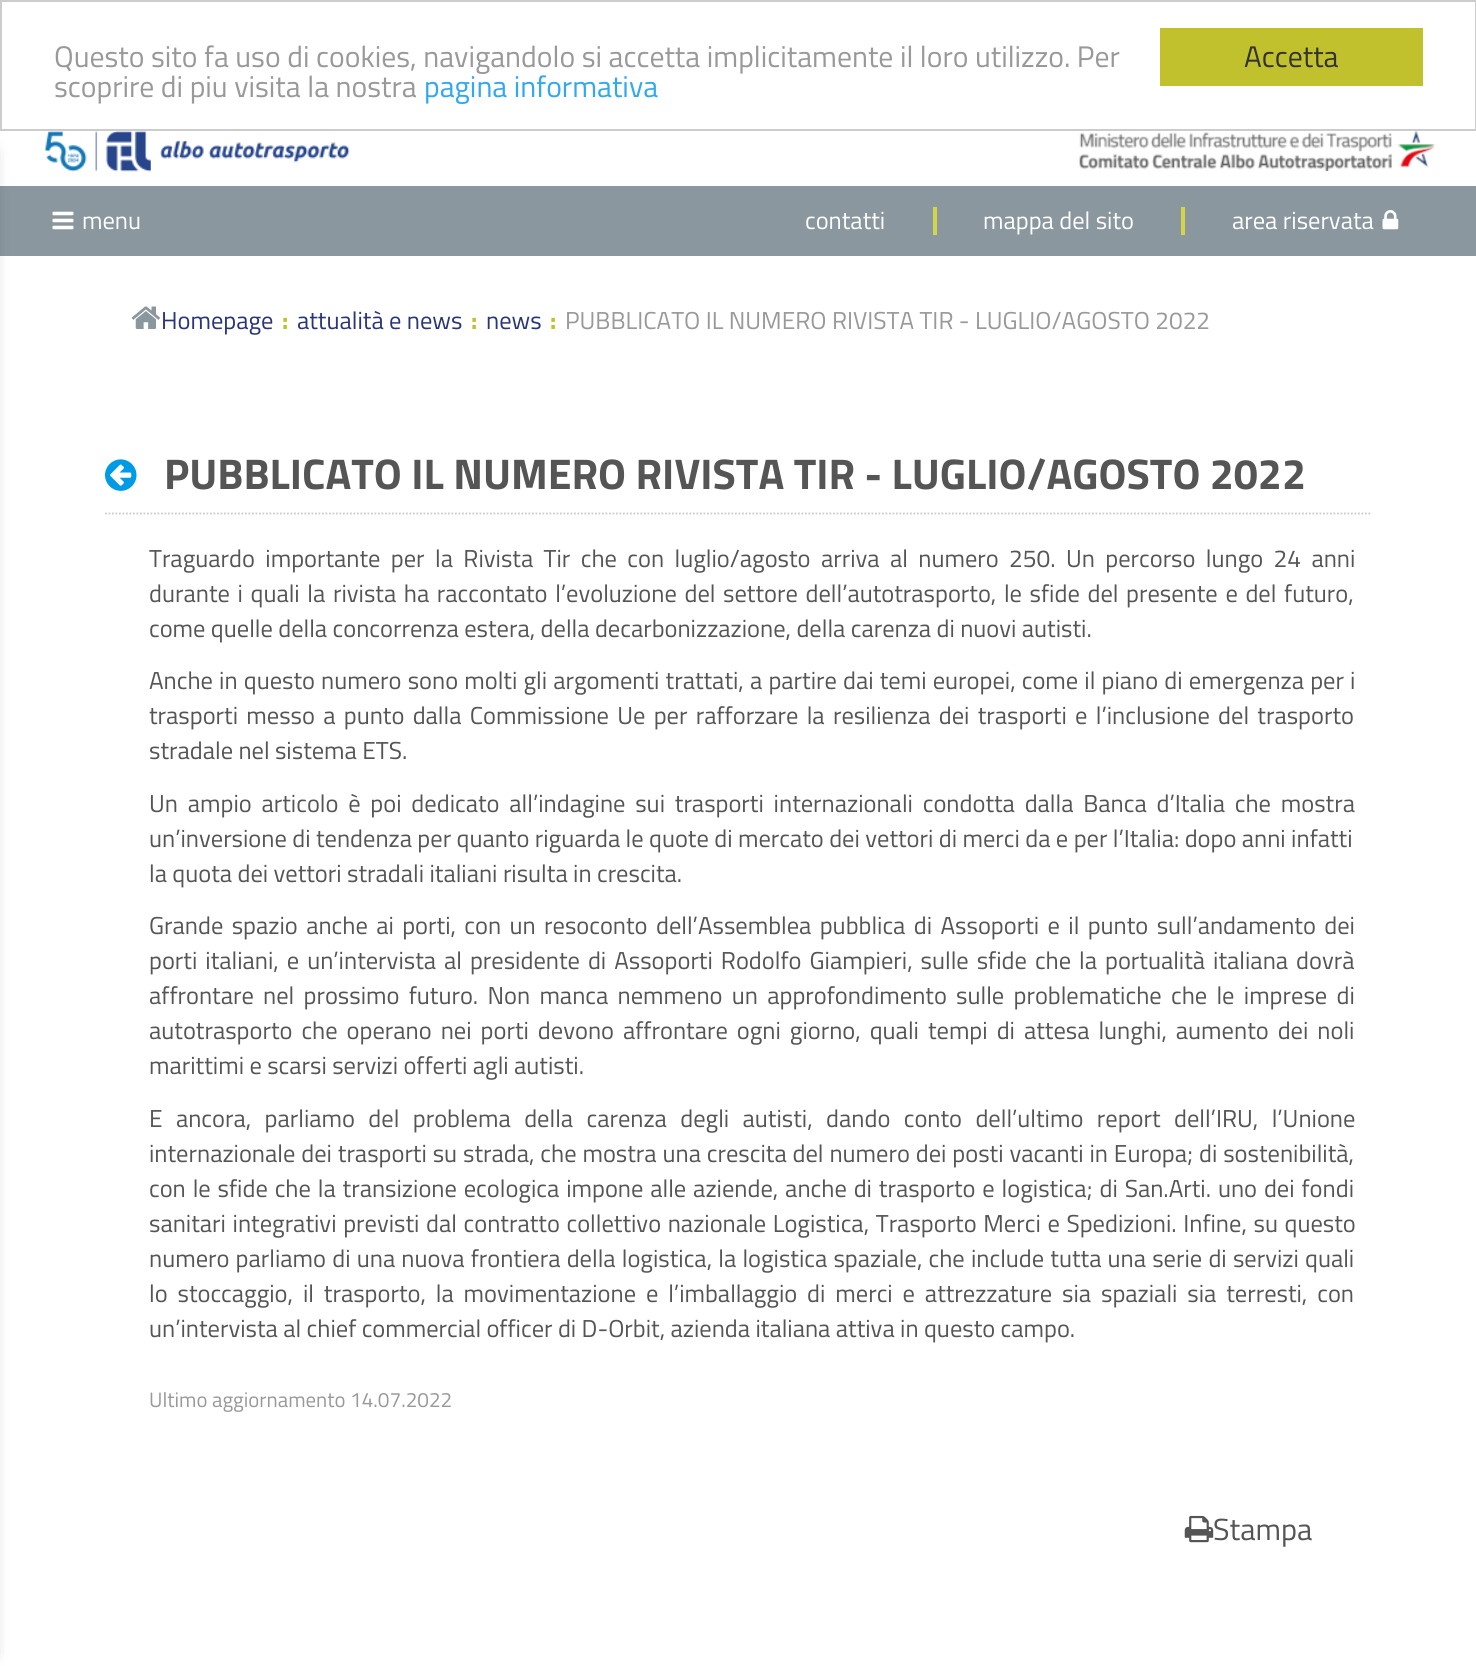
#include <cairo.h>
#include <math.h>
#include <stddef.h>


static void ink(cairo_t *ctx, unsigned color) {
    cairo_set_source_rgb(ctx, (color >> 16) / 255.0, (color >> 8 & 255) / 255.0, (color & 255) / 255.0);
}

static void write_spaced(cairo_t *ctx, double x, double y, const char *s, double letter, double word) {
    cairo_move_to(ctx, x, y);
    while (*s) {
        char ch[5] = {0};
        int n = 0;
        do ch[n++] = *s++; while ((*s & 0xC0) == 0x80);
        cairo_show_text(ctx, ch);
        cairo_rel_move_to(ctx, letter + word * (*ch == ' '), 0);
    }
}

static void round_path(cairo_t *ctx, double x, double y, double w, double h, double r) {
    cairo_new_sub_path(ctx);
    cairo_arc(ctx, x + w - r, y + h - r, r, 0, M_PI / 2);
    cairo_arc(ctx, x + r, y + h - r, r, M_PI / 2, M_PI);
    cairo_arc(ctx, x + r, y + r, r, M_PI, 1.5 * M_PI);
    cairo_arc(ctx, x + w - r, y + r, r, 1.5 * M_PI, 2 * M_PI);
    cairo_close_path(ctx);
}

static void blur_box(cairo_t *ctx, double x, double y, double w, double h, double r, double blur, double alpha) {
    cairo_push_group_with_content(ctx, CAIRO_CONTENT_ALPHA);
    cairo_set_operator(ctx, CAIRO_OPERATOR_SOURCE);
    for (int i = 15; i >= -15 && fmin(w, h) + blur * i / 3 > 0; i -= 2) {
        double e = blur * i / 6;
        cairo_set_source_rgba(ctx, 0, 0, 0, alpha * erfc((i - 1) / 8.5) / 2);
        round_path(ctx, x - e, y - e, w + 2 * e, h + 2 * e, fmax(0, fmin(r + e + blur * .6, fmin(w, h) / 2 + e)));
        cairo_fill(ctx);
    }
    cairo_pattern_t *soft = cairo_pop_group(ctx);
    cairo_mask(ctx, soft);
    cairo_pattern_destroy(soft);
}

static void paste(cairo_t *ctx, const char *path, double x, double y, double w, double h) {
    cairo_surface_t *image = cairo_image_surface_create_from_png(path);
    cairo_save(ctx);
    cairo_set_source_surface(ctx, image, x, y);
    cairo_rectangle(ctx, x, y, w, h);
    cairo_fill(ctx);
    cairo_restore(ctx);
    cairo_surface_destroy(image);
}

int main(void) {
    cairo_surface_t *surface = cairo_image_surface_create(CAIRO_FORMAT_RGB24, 1476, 1666);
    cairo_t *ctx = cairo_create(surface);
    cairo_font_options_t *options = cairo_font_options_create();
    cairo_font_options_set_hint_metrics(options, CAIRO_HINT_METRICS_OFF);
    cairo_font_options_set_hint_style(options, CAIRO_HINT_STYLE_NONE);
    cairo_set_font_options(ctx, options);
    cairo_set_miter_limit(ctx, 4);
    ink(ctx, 0xFFFFFF);
    cairo_paint(ctx);
    ink(ctx, 0x8A979F);
    cairo_rectangle(ctx, 0, 186, 1476, 70);
    cairo_fill(ctx);
    ink(ctx, 0x000000);
    blur_box(ctx, -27, 152, 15, 1502, 0, 9, 0.5);
    cairo_rectangle(ctx, 1, 1, 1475, 129);
    ink(ctx, 0xCCCCCC);
    cairo_stroke(ctx);
    cairo_select_font_face(ctx, "Titillium Web", CAIRO_FONT_SLANT_NORMAL, CAIRO_FONT_WEIGHT_NORMAL);
    cairo_set_font_size(ctx, 29.75);
    ink(ctx, 0x999999);
    cairo_move_to(ctx, 54, 67);
    cairo_show_text(ctx, "Questo sito fa uso di cookies, navigandolo si accetta implicitamente il loro utilizzo. Per");
    cairo_move_to(ctx, 54, 97);
    cairo_show_text(ctx, "scoprire di piu visita la nostra");
    ink(ctx, 0x31A8F0);
    cairo_move_to(ctx, 424, 97);
    cairo_show_text(ctx, "pagina informativa");
    ink(ctx, 0xC1C12D);
    cairo_rectangle(ctx, 1160, 28, 263, 58);
    cairo_fill(ctx);
    ink(ctx, 0x333333);
    cairo_move_to(ctx, 1244, 67);
    cairo_show_text(ctx, "Accetta");
    paste(ctx, "media/1.png", 44, 131, 306, 41);
    paste(ctx, "media/2.png", 1079, 131, 356, 41);
    paste(ctx, "media/3.png", 52, 211, 22, 19);
    cairo_set_font_size(ctx, 24.5);
    ink(ctx, 0xFFFFFF);
    cairo_move_to(ctx, 82, 229);
    cairo_show_text(ctx, "menu");
    cairo_move_to(ctx, 805, 229);
    cairo_show_text(ctx, "contatti");
    ink(ctx, 0xD5D54C);
    cairo_rectangle(ctx, 933, 207, 4, 28);
    cairo_fill(ctx);
    ink(ctx, 0xFFFFFF);
    cairo_move_to(ctx, 983, 229);
    cairo_show_text(ctx, "mappa del sito");
    ink(ctx, 0xD5D54C);
    cairo_rectangle(ctx, 1181, 207, 4, 28);
    cairo_fill(ctx);
    ink(ctx, 0xFFFFFF);
    cairo_move_to(ctx, 1232, 229);
    cairo_show_text(ctx, "area riservata");
    paste(ctx, "media/4.png", 1382, 210, 17, 20);
    paste(ctx, "media/5.png", 131, 306, 29, 23);
    ink(ctx, 0x293576);
    cairo_move_to(ctx, 161, 329);
    cairo_show_text(ctx, "Homepage");
    cairo_select_font_face(ctx, "Titillium Web", CAIRO_FONT_SLANT_NORMAL, CAIRO_FONT_WEIGHT_BOLD);
    ink(ctx, 0xC1C12D);
    cairo_move_to(ctx, 282, 329);
    cairo_show_text(ctx, ":");
    cairo_select_font_face(ctx, "Titillium Web", CAIRO_FONT_SLANT_NORMAL, CAIRO_FONT_WEIGHT_NORMAL);
    ink(ctx, 0x293576);
    cairo_move_to(ctx, 297, 329);
    cairo_show_text(ctx, "attualità e news");
    cairo_select_font_face(ctx, "Titillium Web", CAIRO_FONT_SLANT_NORMAL, CAIRO_FONT_WEIGHT_BOLD);
    ink(ctx, 0xC1C12D);
    cairo_move_to(ctx, 471, 329);
    cairo_show_text(ctx, ":");
    cairo_select_font_face(ctx, "Titillium Web", CAIRO_FONT_SLANT_NORMAL, CAIRO_FONT_WEIGHT_NORMAL);
    ink(ctx, 0x293576);
    cairo_move_to(ctx, 486, 329);
    cairo_show_text(ctx, "news");
    cairo_select_font_face(ctx, "Titillium Web", CAIRO_FONT_SLANT_NORMAL, CAIRO_FONT_WEIGHT_BOLD);
    ink(ctx, 0xC1C12D);
    cairo_move_to(ctx, 550, 329);
    cairo_show_text(ctx, ":");
    cairo_select_font_face(ctx, "Titillium Web", CAIRO_FONT_SLANT_NORMAL, CAIRO_FONT_WEIGHT_NORMAL);
    ink(ctx, 0x999999);
    cairo_move_to(ctx, 565, 329);
    cairo_show_text(ctx, "PUBBLICATO IL NUMERO RIVISTA TIR - LUGLIO/AGOSTO 2022");
    cairo_new_path(ctx);
    cairo_move_to(ctx, 105, 513.5);
    cairo_line_to(ctx, 1372, 513.5);
    ink(ctx, 0xC8C9CA);
    cairo_set_line_width(ctx, 1.8);
    cairo_set_dash(ctx, (double[]){1.75, 1.75}, 2, 0);
    cairo_stroke(ctx);
    paste(ctx, "media/6.png", 105, 459, 32, 32);
    cairo_select_font_face(ctx, "Titillium Web", CAIRO_FONT_SLANT_NORMAL, CAIRO_FONT_WEIGHT_BOLD);
    cairo_set_font_size(ctx, 42.9);
    ink(ctx, 0x555555);
    cairo_move_to(ctx, 164, 489);
    cairo_show_text(ctx, "PUBBLICATO IL NUMERO RIVISTA TIR - LUGLIO/AGOSTO 2022");
    cairo_select_font_face(ctx, "Titillium Web", CAIRO_FONT_SLANT_NORMAL, CAIRO_FONT_WEIGHT_NORMAL);
    cairo_set_font_size(ctx, 24.5);
    write_spaced(ctx, 149, 567, "Traguardo importante per la Rivista Tir che con luglio/agosto arriva al numero 250. Un percorso lungo 24 anni", 0, 5);
    write_spaced(ctx, 149, 602, "durante i quali la rivista ha raccontato l’evoluzione del settore dell’autotrasporto, le sfide del presente e del futuro,", 0, 2.25);
    cairo_move_to(ctx, 149, 637);
    cairo_show_text(ctx, "come quelle della concorrenza estera, della decarbonizzazione, della carenza di nuovi autisti.");
    write_spaced(ctx, 149, 689, "Anche in questo numero sono molti gli argomenti trattati, a partire dai temi europei, come il piano di emergenza per i", 0, 0.75);
    write_spaced(ctx, 149, 724, "trasporti messo a punto dalla Commissione Ue per rafforzare la resilienza dei trasporti e l’inclusione del trasporto", 0, 2.9);
    cairo_move_to(ctx, 149, 759);
    cairo_show_text(ctx, "stradale nel sistema ETS.");
    write_spaced(ctx, 149, 812, "Un ampio articolo è poi dedicato all’indagine sui trasporti internazionali condotta dalla Banca d’Italia che mostra", 0, 4.4);
    cairo_move_to(ctx, 149, 847);
    cairo_show_text(ctx, "un’inversione di tendenza per quanto riguarda le quote di mercato dei vettori di merci da e per l’Italia: dopo anni infatti");
    cairo_move_to(ctx, 149, 882);
    cairo_show_text(ctx, "la quota dei vettori stradali italiani risulta in crescita.");
    write_spaced(ctx, 149, 934, "Grande spazio anche ai porti, con un resoconto dell’Assemblea pubblica di Assoporti e il punto sull’andamento dei", 0, 3);
    write_spaced(ctx, 149, 969, "porti italiani, e un’intervista al presidente di Assoporti Rodolfo Giampieri, sulle sfide che la portualità italiana dovrà", 0, 2.6);
    write_spaced(ctx, 149, 1004, "affrontare nel prossimo futuro. Non manca nemmeno un approfondimento sulle problematiche che le imprese di", 0, 3.9);
    write_spaced(ctx, 149, 1039, "autotrasporto che operano nei porti devono affrontare ogni giorno, quali tempi di attesa lunghi, aumento dei noli", 0, 3.6);
    cairo_move_to(ctx, 149, 1074);
    cairo_show_text(ctx, "marittimi e scarsi servizi offerti agli autisti.");
    write_spaced(ctx, 149, 1127, "E ancora, parliamo del problema della carenza degli autisti, dando conto dell’ultimo report dell’IRU, l’Unione", 0, 8);
    write_spaced(ctx, 149, 1162, "internazionale dei trasporti su strada, che mostra una crescita del numero dei posti vacanti in Europa; di sostenibilità,", 0, 0.5);
    write_spaced(ctx, 149, 1197, "con le sfide che la transizione ecologica impone alle aziende, anche di trasporto e logistica; di San.Arti. uno dei fondi", 0, 1.5);
    write_spaced(ctx, 149, 1232, "sanitari integrativi previsti dal contratto collettivo nazionale Logistica, Trasporto Merci e Spedizioni. Infine, su questo", 0, 1.25);
    write_spaced(ctx, 149, 1267, "numero parliamo di una nuova frontiera della logistica, la logistica spaziale, che include tutta una serie di servizi quali", 0, 0.8);
    write_spaced(ctx, 149, 1302, "lo stoccaggio, il trasporto, la movimentazione e l’imballaggio di merci e attrezzature sia spaziali sia terresti, con", 0, 4.5);
    cairo_move_to(ctx, 149, 1337);
    cairo_show_text(ctx, "un’intervista al chief commercial officer di D-Orbit, azienda italiana attiva in questo campo.");
    cairo_set_font_size(ctx, 20.8);
    ink(ctx, 0x999999);
    cairo_move_to(ctx, 149, 1407);
    cairo_show_text(ctx, "Ultimo aggiornamento 14.07.2022");
    paste(ctx, "media/7.png", 1184, 1515, 30, 28);
    cairo_set_font_size(ctx, 30.5);
    ink(ctx, 0x555555);
    cairo_move_to(ctx, 1213, 1540);
    cairo_show_text(ctx, "Stampa");
    cairo_surface_write_to_png(surface, "image.png");
    cairo_font_options_destroy(options);
    cairo_destroy(ctx);
    cairo_surface_destroy(surface);
    return 0;
}
